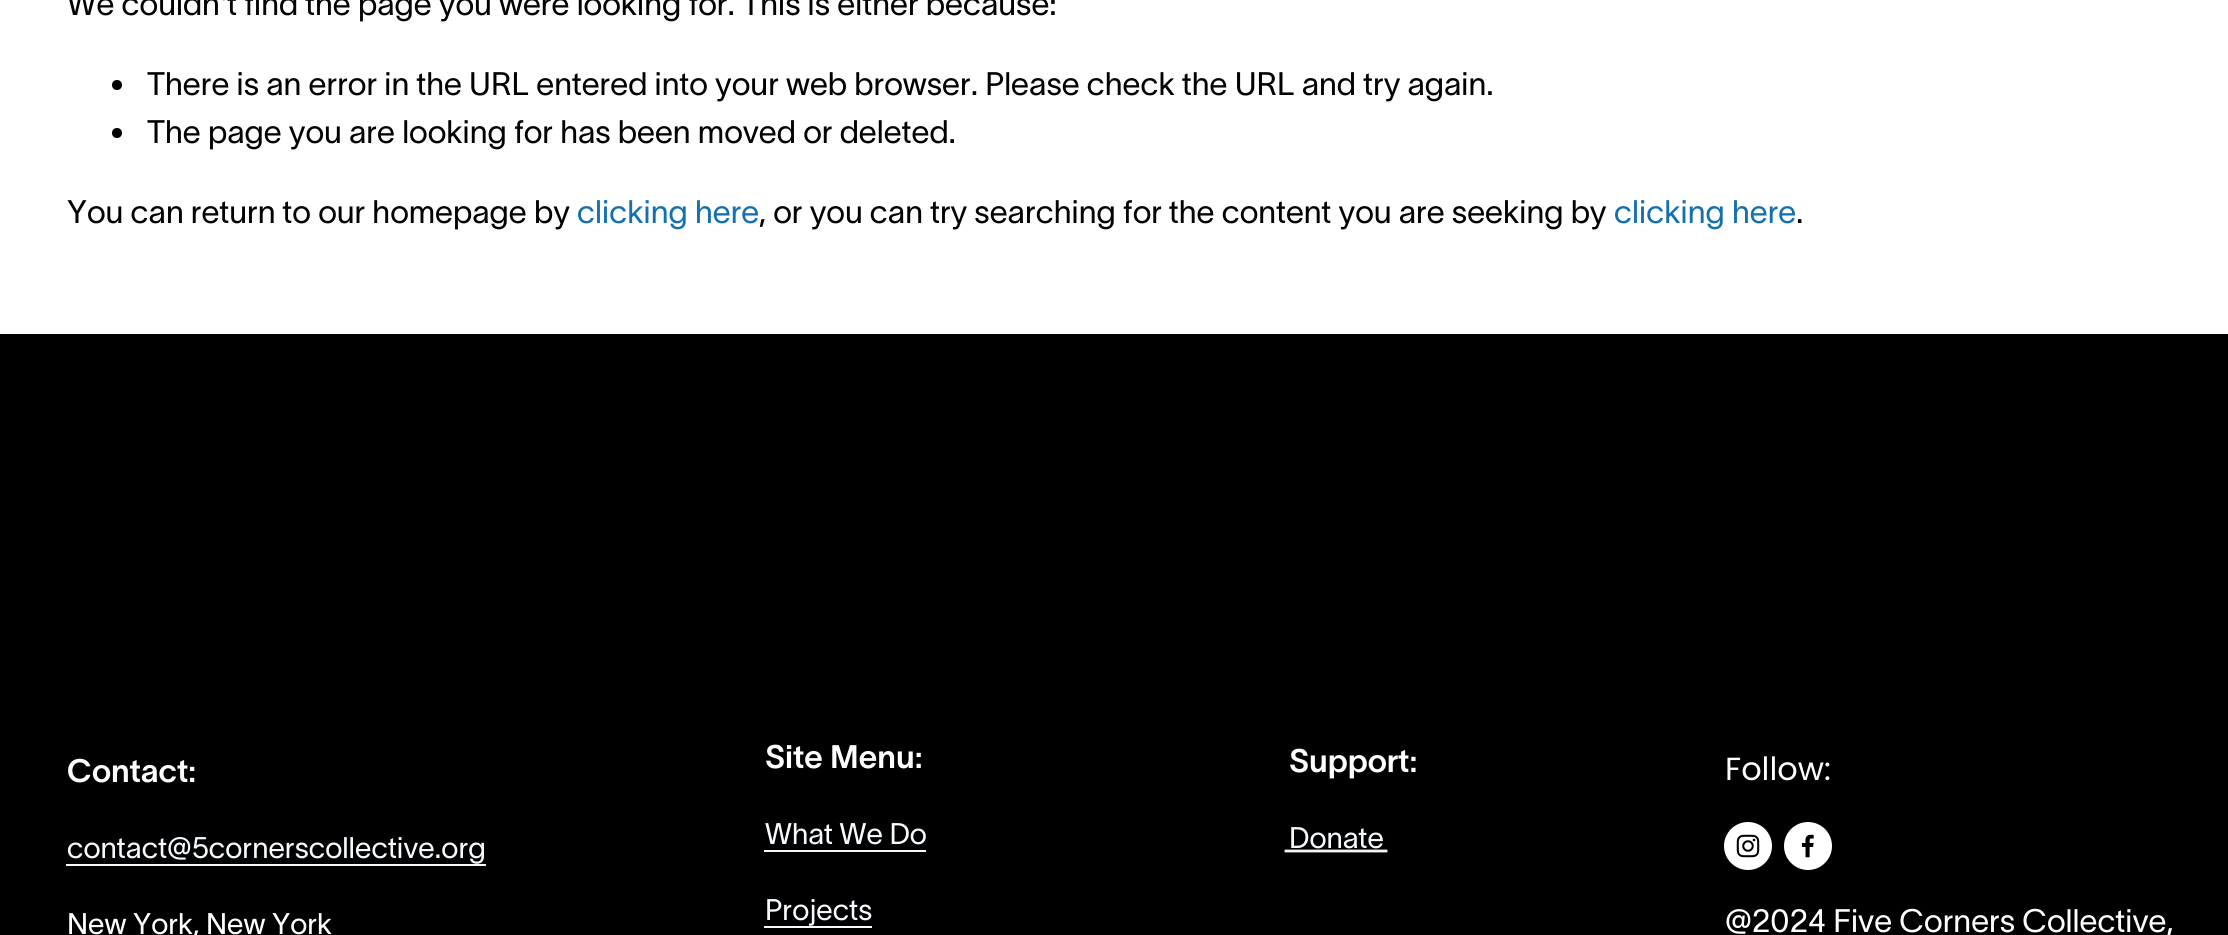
#include <cairo.h>
#include <math.h>
#include <stddef.h>


static void ink(cairo_t *ctx, unsigned color) {
    cairo_set_source_rgb(ctx, (color >> 16) / 255.0, (color >> 8 & 255) / 255.0, (color & 255) / 255.0);
}

static void paste(cairo_t *ctx, const char *path, double x, double y, double w, double h) {
    cairo_surface_t *image = cairo_image_surface_create_from_png(path);
    cairo_save(ctx);
    cairo_set_source_surface(ctx, image, x, y);
    cairo_rectangle(ctx, x, y, w, h);
    cairo_fill(ctx);
    cairo_restore(ctx);
    cairo_surface_destroy(image);
}

int main(void) {
    cairo_surface_t *surface = cairo_image_surface_create(CAIRO_FORMAT_RGB24, 2228, 935);
    cairo_t *ctx = cairo_create(surface);
    cairo_font_options_t *options = cairo_font_options_create();
    cairo_font_options_set_hint_metrics(options, CAIRO_HINT_METRICS_OFF);
    cairo_font_options_set_hint_style(options, CAIRO_HINT_STYLE_NONE);
    cairo_set_font_options(ctx, options);
    cairo_set_miter_limit(ctx, 4);
    ink(ctx, 0xFFFFFF);
    cairo_paint(ctx);
    cairo_select_font_face(ctx, "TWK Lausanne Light", CAIRO_FONT_SLANT_NORMAL, CAIRO_FONT_WEIGHT_NORMAL);
    cairo_set_font_size(ctx, 32);
    ink(ctx, 0x000000);
    cairo_move_to(ctx, 67, 15);
    cairo_show_text(ctx, "We couldn't find the page you were looking for. This is either because:");
    cairo_new_path(ctx);
    cairo_arc(ctx, 117, 85, 5, 0, 2 * M_PI);
    cairo_fill(ctx);
    cairo_move_to(ctx, 147, 95);
    cairo_show_text(ctx, "There is an error in the URL entered into your web browser. Please check the URL and try again.");
    cairo_new_path(ctx);
    cairo_arc(ctx, 117, 133, 5, 0, 2 * M_PI);
    cairo_fill(ctx);
    cairo_move_to(ctx, 147, 143);
    cairo_show_text(ctx, "The page you are looking for has been moved or deleted.");
    cairo_move_to(ctx, 67, 223);
    cairo_show_text(ctx, "You can return to our homepage by");
    ink(ctx, 0x1470AF);
    cairo_move_to(ctx, 577, 223);
    cairo_show_text(ctx, "clicking here");
    ink(ctx, 0x000000);
    cairo_move_to(ctx, 759, 223);
    cairo_show_text(ctx, ", or you can try searching for the content you are seeking by");
    ink(ctx, 0x1470AF);
    cairo_move_to(ctx, 1614, 223);
    cairo_show_text(ctx, "clicking here");
    ink(ctx, 0x000000);
    cairo_move_to(ctx, 1796, 223);
    cairo_show_text(ctx, ".");
    cairo_rectangle(ctx, 0, 334, 2228, 601);
    cairo_fill(ctx);
    cairo_select_font_face(ctx, "TWK Lausanne SemiBold", CAIRO_FONT_SLANT_NORMAL, CAIRO_FONT_WEIGHT_NORMAL);
    ink(ctx, 0xFFFFFF);
    cairo_move_to(ctx, 67, 782);
    cairo_show_text(ctx, "Contact:");
    cairo_select_font_face(ctx, "TWK Lausanne Light", CAIRO_FONT_SLANT_NORMAL, CAIRO_FONT_WEIGHT_NORMAL);
    cairo_set_font_size(ctx, 29.3);
    ink(ctx, 0xF4FAFE);
    cairo_move_to(ctx, 67, 858);
    cairo_show_text(ctx, "contact@5cornerscollective.org");
    cairo_rectangle(ctx, 66, 864, 420, 2);
    cairo_fill(ctx);
    ink(ctx, 0xFFFFFF);
    cairo_move_to(ctx, 67, 934);
    cairo_show_text(ctx, "New York, New York");
    cairo_select_font_face(ctx, "TWK Lausanne SemiBold", CAIRO_FONT_SLANT_NORMAL, CAIRO_FONT_WEIGHT_NORMAL);
    cairo_set_font_size(ctx, 32);
    cairo_move_to(ctx, 765, 768);
    cairo_show_text(ctx, "Site Menu:");
    cairo_select_font_face(ctx, "TWK Lausanne Light", CAIRO_FONT_SLANT_NORMAL, CAIRO_FONT_WEIGHT_NORMAL);
    cairo_set_font_size(ctx, 29.3);
    ink(ctx, 0xF4FAFE);
    cairo_move_to(ctx, 765, 844);
    cairo_show_text(ctx, "What We Do");
    cairo_rectangle(ctx, 764, 850, 162, 2);
    cairo_fill(ctx);
    cairo_move_to(ctx, 765, 920);
    cairo_show_text(ctx, "Projects");
    cairo_rectangle(ctx, 764, 926, 108, 2);
    cairo_fill(ctx);
    cairo_select_font_face(ctx, "TWK Lausanne SemiBold", CAIRO_FONT_SLANT_NORMAL, CAIRO_FONT_WEIGHT_NORMAL);
    cairo_set_font_size(ctx, 32);
    ink(ctx, 0xFFFFFF);
    cairo_move_to(ctx, 1289, 772);
    cairo_show_text(ctx, "Support:");
    cairo_select_font_face(ctx, "TWK Lausanne Light", CAIRO_FONT_SLANT_NORMAL, CAIRO_FONT_WEIGHT_NORMAL);
    cairo_set_font_size(ctx, 29.3);
    ink(ctx, 0xF4FAFE);
    cairo_move_to(ctx, 1289, 848);
    cairo_show_text(ctx, "Donate");
    cairo_new_path(ctx);
    cairo_move_to(ctx, 1286, 851);
    cairo_line_to(ctx, 1386, 851);
    ink(ctx, 0xF0F4F7);
    cairo_set_line_width(ctx, 2.8);
    cairo_set_line_cap(ctx, CAIRO_LINE_CAP_SQUARE);
    cairo_set_line_join(ctx, CAIRO_LINE_JOIN_BEVEL);
    cairo_stroke(ctx);
    cairo_select_font_face(ctx, "Poppins", CAIRO_FONT_SLANT_NORMAL, CAIRO_FONT_WEIGHT_NORMAL);
    cairo_set_font_size(ctx, 32);
    ink(ctx, 0xFFFFFF);
    cairo_move_to(ctx, 1725, 780);
    cairo_show_text(ctx, "Follow:");
    paste(ctx, "media/1.png", 1724, 822, 48, 48);
    paste(ctx, "media/2.png", 1784, 822, 48, 48);
    cairo_select_font_face(ctx, "TWK Lausanne Light", CAIRO_FONT_SLANT_NORMAL, CAIRO_FONT_WEIGHT_NORMAL);
    cairo_move_to(ctx, 1725, 932);
    cairo_show_text(ctx, "@2024 Five Corners Collective,");
    cairo_surface_write_to_png(surface, "image.png");
    cairo_font_options_destroy(options);
    cairo_destroy(ctx);
    cairo_surface_destroy(surface);
    return 0;
}
